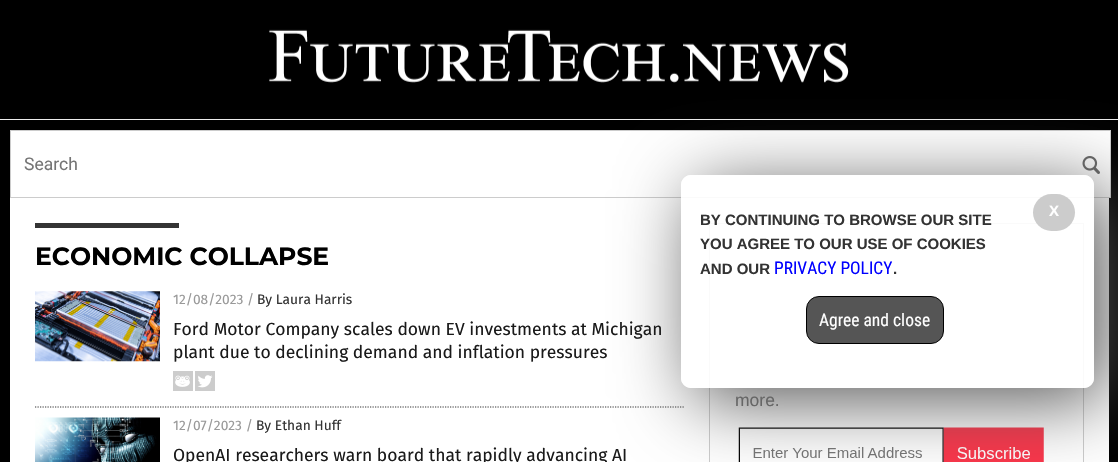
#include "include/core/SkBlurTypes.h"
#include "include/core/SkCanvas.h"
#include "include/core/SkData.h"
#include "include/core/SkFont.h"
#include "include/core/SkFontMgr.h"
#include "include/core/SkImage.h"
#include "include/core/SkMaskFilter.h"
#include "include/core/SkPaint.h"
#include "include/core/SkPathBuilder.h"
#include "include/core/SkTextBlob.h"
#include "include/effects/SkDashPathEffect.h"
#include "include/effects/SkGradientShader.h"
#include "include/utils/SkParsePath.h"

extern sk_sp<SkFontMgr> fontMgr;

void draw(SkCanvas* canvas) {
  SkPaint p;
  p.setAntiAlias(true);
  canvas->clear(SK_ColorBLACK);
  canvas->drawImageRect(SkImages::DeferredFromEncodedData(SkData::MakeFromFileName("images/1.png")), SkRect::MakeLTRB(269, 29, 849, 83), SkSamplingOptions());
  p.setColor(SkColorSetRGB(236, 236, 236));
  canvas->drawRect(SkRect::MakeLTRB(0, 119, 1118, 120), p);
  p.setColor(SK_ColorWHITE);
  canvas->drawRect(SkRect::MakeLTRB(10.5f, 130.5f, 1110.5f, 197.5f), p);
  p.setStyle(SkPaint::kStroke_Style);
  p.setStrokeWidth(1);
  p.setColor(SkColorSetRGB(204, 204, 204));
  canvas->drawRect(SkRect::MakeLTRB(10.5f, 130.5f, 1110.5f, 197.5f), p);
  canvas->drawImageRect(SkImages::DeferredFromEncodedData(SkData::MakeFromFileName("images/2.png")), SkRect::MakeLTRB(1082, 156, 1100, 174), SkSamplingOptions());
  p.setStyle(SkPaint::kFill_Style);
  p.setColor(SK_ColorWHITE);
  canvas->drawRect(SkRect::MakeLTRB(10, 198, 1109, 462), p);
  p.setColor(SkColorSetRGB(52, 52, 52));
  canvas->drawRect(SkRect::MakeLTRB(35, 223, 179, 228), p);
  p.setStyle(SkPaint::kStroke_Style);
  p.setStrokeWidth(1.2f);
  p.setPathEffect(SkDashPathEffect::Make({{1.25f, 1.25f}}, 0));
  canvas->drawPath(SkPathBuilder().moveTo(35, 407).lineTo(684, 407).detach(), p);
  p.setPathEffect(nullptr);
  canvas->drawImageRect(SkImages::DeferredFromEncodedData(SkData::MakeFromFileName("images/3.png")), SkRect::MakeLTRB(35, 291, 160, 362), SkSamplingOptions());
  canvas->drawImageRect(SkImages::DeferredFromEncodedData(SkData::MakeFromFileName("images/4.png")), SkRect::MakeLTRB(173, 371, 193, 391), SkSamplingOptions());
  canvas->drawImageRect(SkImages::DeferredFromEncodedData(SkData::MakeFromFileName("images/5.png")), SkRect::MakeLTRB(195, 371, 215, 391), SkSamplingOptions());
  canvas->drawImageRect(SkImages::DeferredFromEncodedData(SkData::MakeFromFileName("images/6.png")), SkRect::MakeLTRB(35, 417, 160, 462), SkSamplingOptions());
  p.setStrokeWidth(1);
  p.setColor(SkColorSetRGB(204, 204, 204));
  canvas->drawRect(SkRect::MakeLTRB(709.5f, 223.5f, 1083.5f, 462.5f), p);
  canvas->drawImageRect(SkImages::DeferredFromEncodedData(SkData::MakeFromFileName("images/7.png")), SkRect::MakeLTRB(738, 427, 1044, 462), SkSamplingOptions());
  canvas->save();
  canvas->clipPath(SkPathBuilder(SkPathFillType::kEvenOdd).moveTo(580, 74).lineTo(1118, 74).lineTo(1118, 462).lineTo(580, 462).close().moveTo(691, 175).lineTo(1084, 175).cubicTo(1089.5f, 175, 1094, 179.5f, 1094, 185).lineTo(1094, 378).cubicTo(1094, 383.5f, 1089.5f, 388, 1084, 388).lineTo(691, 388).cubicTo(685.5f, 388, 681, 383.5f, 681, 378).lineTo(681, 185).cubicTo(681, 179.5f, 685.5f, 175, 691, 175).close().detach(), true);
  p.setStyle(SkPaint::kFill_Style);
  p.setColor(SkColorSetRGB(85, 85, 85));
  p.setMaskFilter(SkMaskFilter::MakeBlur(kNormal_SkBlurStyle, 37.5f));
  canvas->drawRoundRect(SkRect::MakeLTRB(694, 188, 1106, 400), 10, 10, p);
  p.setMaskFilter(nullptr);
  canvas->restore();
  p.setColor(SkColorSetARGB(230, 255, 255, 255));
  canvas->drawRoundRect(SkRect::MakeLTRB(681, 175, 1094, 388), 10, 10, p);
  p.setColor(SkColorSetRGB(204, 204, 204));
  canvas->drawRoundRect(SkRect::MakeLTRB(1033, 194, 1075, 231), 18.5f, 18.5f, p);
  p.setColor(SkColorSetRGB(85, 85, 85));
  canvas->drawRoundRect(SkRect::MakeLTRB(806.5f, 296.5f, 943.5f, 343.5f), 12.5f, 12.5f, p);
  p.setStyle(SkPaint::kStroke_Style);
  p.setColor(SK_ColorBLACK);
  canvas->drawRoundRect(SkRect::MakeLTRB(806.5f, 296.5f, 943.5f, 343.5f), 12.5f, 12.5f, p);
  SkFont font1(fontMgr->matchFamilyStyle("Roboto", SkFontStyle::Normal()), 17.5f);
  font1.setSubpixel(true);
  p.setStyle(SkPaint::kFill_Style);
  p.setColor(SkColorSetRGB(117, 117, 117));
  canvas->drawString("Search", 24, 170, font1, p);
  SkFont font2(fontMgr->matchFamilyStyle("Montserrat", SkFontStyle::Bold()), 25);
  font2.setSubpixel(true);
  p.setColor(SK_ColorBLACK);
  canvas->drawString("ECONOMIC COLLAPSE", 35, 265, font2, p);
  SkFont font3(fontMgr->matchFamilyStyle("Fira Sans", SkFontStyle::Normal()), 13.75f);
  font3.setSubpixel(true);
  p.setColor(SkColorSetRGB(153, 153, 153));
  canvas->drawString("12/08/2023 /", 173, 304, font3, p);
  p.setColor(SkColorSetRGB(51, 51, 51));
  canvas->drawString("By Laura Harris", 257, 304, font3, p);
  SkFont font4(fontMgr->matchFamilyStyle("Fira Sans", SkFontStyle::Normal()), 17.5f);
  font4.setSubpixel(true);
  p.setColor(SkColorSetRGB(26, 26, 26));
  canvas->drawString("Ford Motor Company scales down EV investments at Michigan", 173, 335, font4, p);
  canvas->drawString("plant due to declining demand and inflation pressures", 173, 358, font4, p);
  p.setColor(SkColorSetRGB(153, 153, 153));
  canvas->drawString("12/07/2023 /", 173, 430, font3, p);
  p.setColor(SkColorSetRGB(51, 51, 51));
  canvas->drawString("By Ethan Huff", 256, 430, font3, p);
  p.setColor(SkColorSetRGB(26, 26, 26));
  canvas->drawString("OpenAI researchers warn board that rapidly advancing AI", 173, 461, font4, p);
  SkFont font5(fontMgr->matchFamilyStyle("Liberation Sans", SkFontStyle::Normal()), 17.5f);
  font5.setSubpixel(true);
  p.setColor(SkColorSetRGB(102, 102, 102));
  canvas->drawString("more.", 735, 406, font5, p);
  SkFont font6(fontMgr->matchFamilyStyle("Liberation Sans", SkFontStyle::Bold()), 15);
  font6.setSubpixel(true);
  p.setColor(SK_ColorWHITE);
  canvas->drawString("X", 1049, 216, font6, p);
  p.setColor(SkColorSetRGB(51, 51, 51));
  canvas->drawString("BY CONTINUING TO BROWSE OUR SITE", 700, 225, font6, p);
  canvas->drawString("YOU AGREE TO OUR USE OF COOKIES", 700, 249, font6, p);
  canvas->drawString("AND OUR", 700, 274, font6, p);
  SkFont font7(fontMgr->matchFamilyStyle("Roboto Condensed", SkFontStyle::Normal()), 17.5f);
  font7.setSubpixel(true);
  p.setColor(SkColorSetRGB(0, 0, 255));
  canvas->drawString("PRIVACY POLICY", 774, 274, font7, p);
  p.setColor(SkColorSetRGB(51, 51, 51));
  canvas->drawString(".", 893, 274, font6, p);
  p.setColor(SK_ColorWHITE);
  canvas->drawString("Agree and close", 819, 326, font7, p);
}
